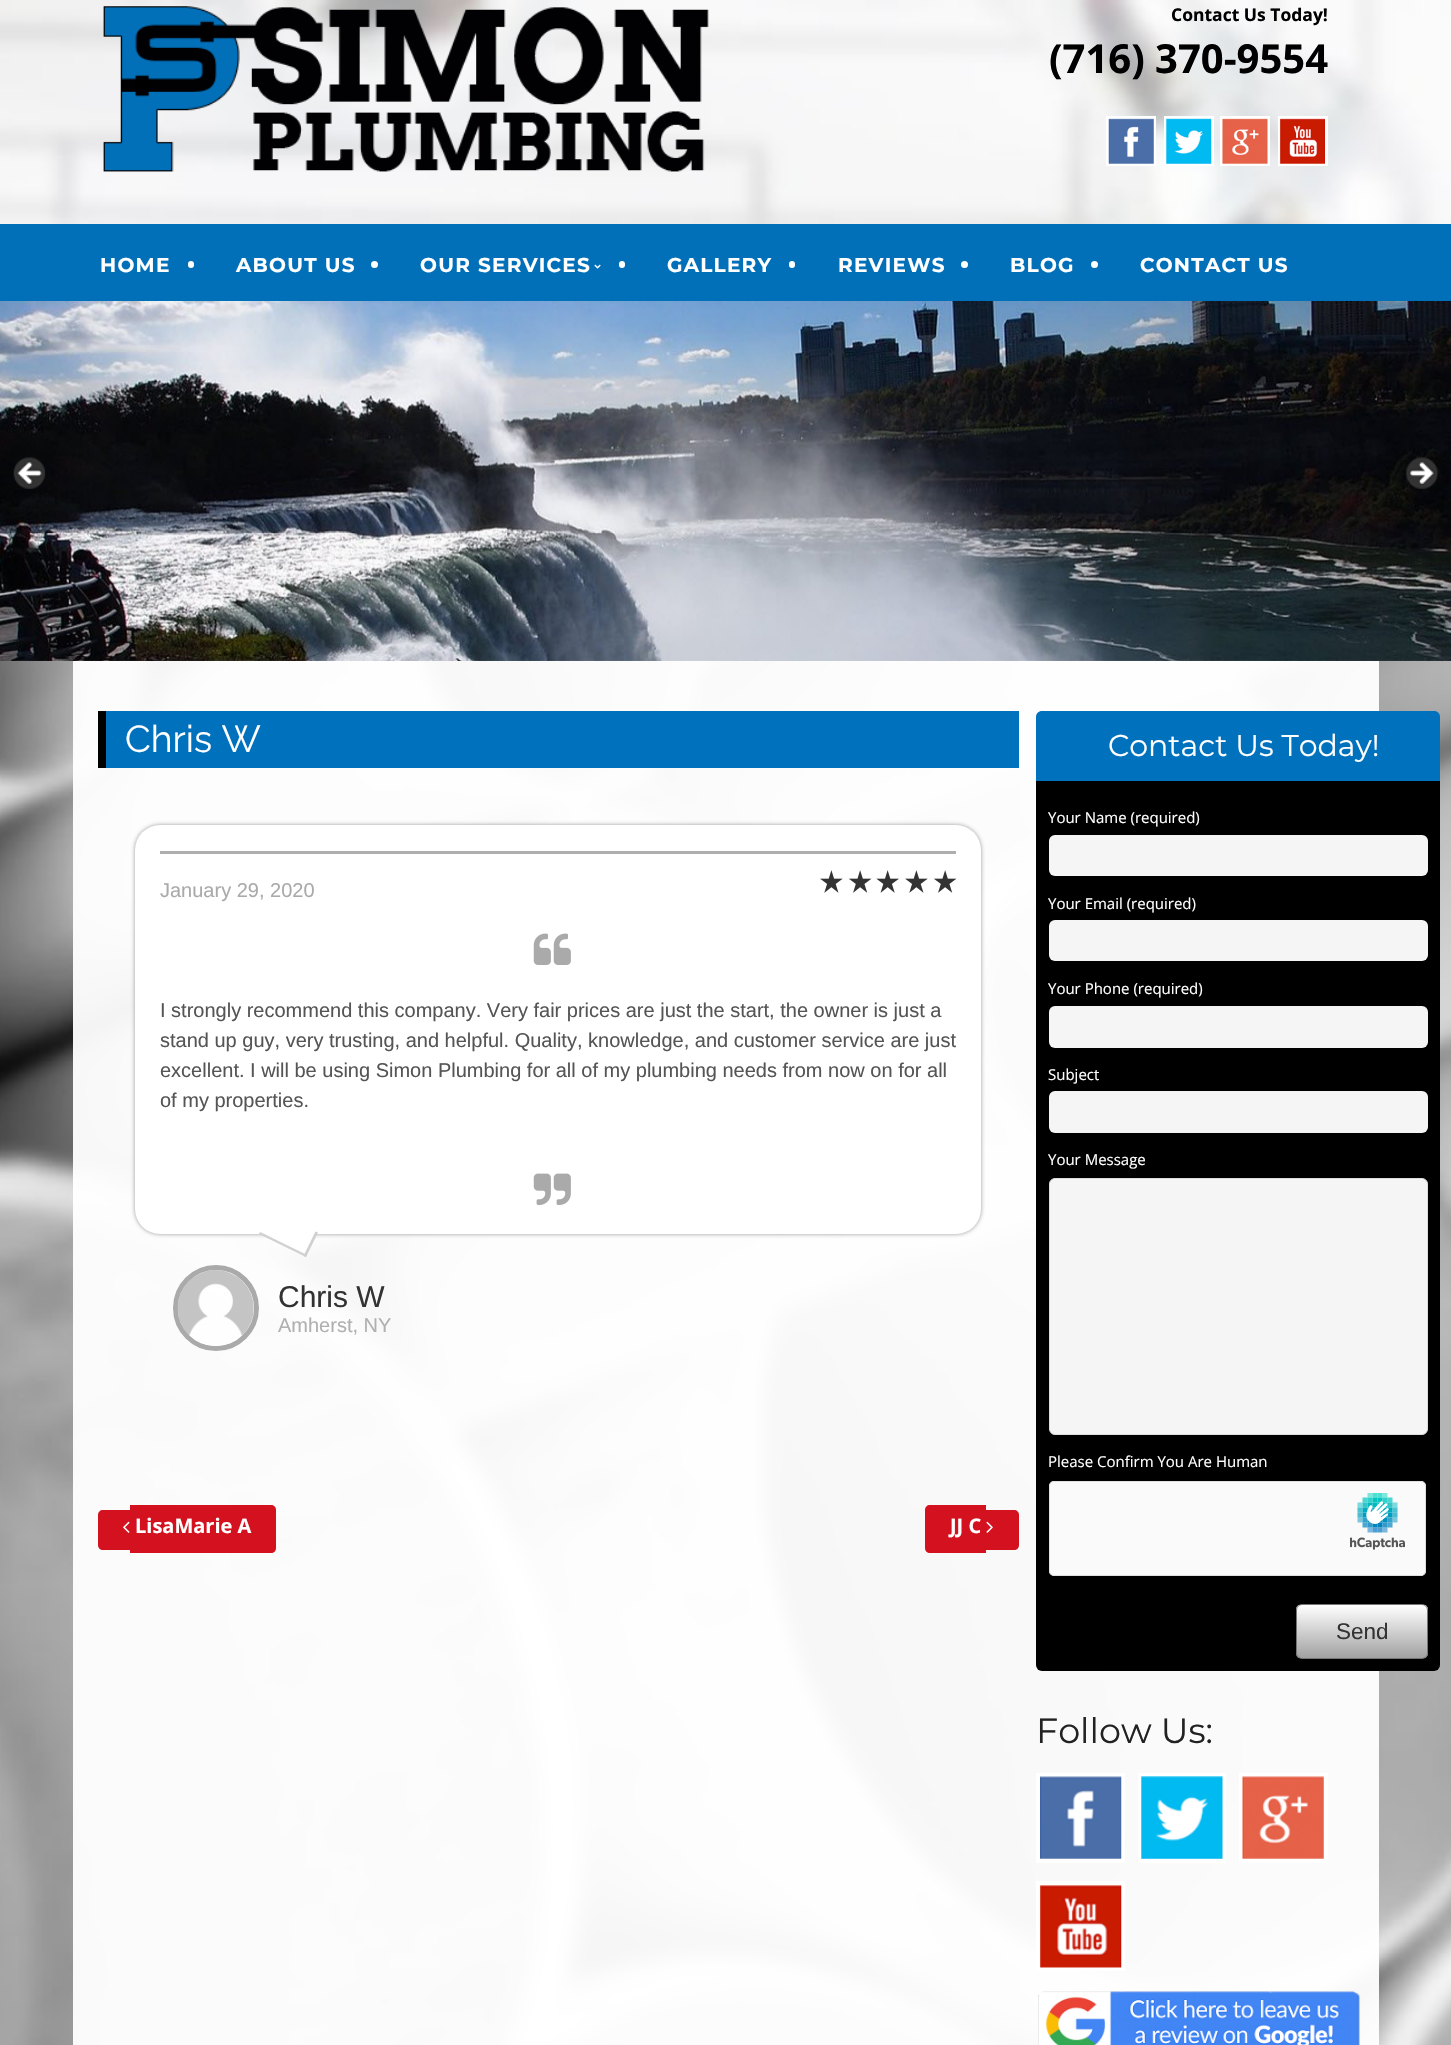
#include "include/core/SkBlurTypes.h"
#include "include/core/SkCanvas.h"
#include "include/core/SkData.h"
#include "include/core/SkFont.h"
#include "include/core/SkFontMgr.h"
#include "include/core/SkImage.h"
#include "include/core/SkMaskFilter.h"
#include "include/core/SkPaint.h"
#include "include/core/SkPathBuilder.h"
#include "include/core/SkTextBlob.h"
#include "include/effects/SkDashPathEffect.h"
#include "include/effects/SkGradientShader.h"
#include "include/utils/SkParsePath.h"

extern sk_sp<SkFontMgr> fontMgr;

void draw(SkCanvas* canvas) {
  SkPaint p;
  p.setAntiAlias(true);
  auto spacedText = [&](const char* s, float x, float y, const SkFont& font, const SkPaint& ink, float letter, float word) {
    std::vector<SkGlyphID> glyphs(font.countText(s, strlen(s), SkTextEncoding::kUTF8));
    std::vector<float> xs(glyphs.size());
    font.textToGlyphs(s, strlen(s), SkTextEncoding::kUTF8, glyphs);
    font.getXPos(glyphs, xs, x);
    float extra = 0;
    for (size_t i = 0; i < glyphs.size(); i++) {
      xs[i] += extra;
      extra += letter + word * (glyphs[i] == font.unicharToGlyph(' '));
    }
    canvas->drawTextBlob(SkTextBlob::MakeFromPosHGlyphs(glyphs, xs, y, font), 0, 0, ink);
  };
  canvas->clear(SK_ColorWHITE);
  canvas->drawImageRect(SkImages::DeferredFromEncodedData(SkData::MakeFromFileName("images/1.png")), SkRect::MakeLTRB(0, 660, 1451, 2045), SkSamplingOptions());
  canvas->drawImageRect(SkImages::DeferredFromEncodedData(SkData::MakeFromFileName("images/2.png")), SkRect::MakeLTRB(0, 0, 1451, 224), SkSamplingOptions());
  canvas->drawImageRect(SkImages::DeferredFromEncodedData(SkData::MakeFromFileName("images/3.png")), SkRect::MakeLTRB(103, 6, 709, 172), SkSamplingOptions());
  p.setStyle(SkPaint::kStroke_Style);
  p.setStrokeWidth(3);
  p.setColor(SK_ColorWHITE);
  canvas->drawRect(SkRect::MakeLTRB(1107.5f, 117.5f, 1154.5f, 164.5f), p);
  canvas->drawRect(SkRect::MakeLTRB(1165.5f, 117.5f, 1212.5f, 164.5f), p);
  canvas->drawRect(SkRect::MakeLTRB(1221.5f, 117.5f, 1268.5f, 164.5f), p);
  canvas->drawRect(SkRect::MakeLTRB(1279.5f, 117.5f, 1326.5f, 164.5f), p);
  canvas->drawImageRect(SkImages::DeferredFromEncodedData(SkData::MakeFromFileName("images/4.png")), SkRect::MakeLTRB(1108, 118, 1154, 164), SkSamplingOptions());
  canvas->drawImageRect(SkImages::DeferredFromEncodedData(SkData::MakeFromFileName("images/5.png")), SkRect::MakeLTRB(1166, 118, 1212, 164), SkSamplingOptions());
  canvas->drawImageRect(SkImages::DeferredFromEncodedData(SkData::MakeFromFileName("images/6.png")), SkRect::MakeLTRB(1222, 118, 1268, 164), SkSamplingOptions());
  canvas->drawImageRect(SkImages::DeferredFromEncodedData(SkData::MakeFromFileName("images/7.png")), SkRect::MakeLTRB(1280, 118, 1325, 164), SkSamplingOptions());
  p.setStyle(SkPaint::kFill_Style);
  p.setColor(SkColorSetRGB(1, 112, 185));
  canvas->drawRect(SkRect::MakeLTRB(0, 224, 1451, 301), p);
  p.setColor(SK_ColorWHITE);
  canvas->drawRoundRect(SkRect::MakeLTRB(188, 261, 194, 268), 3, 3, p);
  canvas->drawCircle(374.5f, 264.5f, 3.5f, p);
  canvas->drawImageRect(SkImages::DeferredFromEncodedData(SkData::MakeFromFileName("images/8.png")), SkRect::MakeLTRB(594, 264, 601, 269), SkSamplingOptions());
  canvas->drawRoundRect(SkRect::MakeLTRB(619, 261, 625, 268), 3, 3, p);
  canvas->drawRoundRect(SkRect::MakeLTRB(789, 261, 795, 268), 3, 3, p);
  canvas->drawCircle(964.5f, 264.5f, 3.5f, p);
  canvas->drawCircle(1094.5f, 264.5f, 3.5f, p);
  canvas->drawImageRect(SkImages::DeferredFromEncodedData(SkData::MakeFromFileName("images/9.png")), SkRect::MakeLTRB(0, 301, 1451, 661), SkSamplingOptions());
  canvas->drawImageRect(SkImages::DeferredFromEncodedData(SkData::MakeFromFileName("images/10.png")), SkRect::MakeLTRB(13, 457, 46, 489), SkSamplingOptions());
  canvas->drawImageRect(SkImages::DeferredFromEncodedData(SkData::MakeFromFileName("images/11.png")), SkRect::MakeLTRB(1406, 457, 1438, 489), SkSamplingOptions());
  p.setColor(SkColorSetARGB(242, 255, 255, 255));
  canvas->drawRect(SkRect::MakeLTRB(73, 661, 1379, 2045), p);
  p.setColor(SkColorSetRGB(0, 113, 188));
  canvas->drawRect(SkRect::MakeLTRB(106, 711, 1019, 768), p);
  p.setColor(SK_ColorBLACK);
  canvas->drawRect(SkRect::MakeLTRB(98, 711, 106, 768), p);
  p.setColor(SkColorSetRGB(153, 153, 153));
  p.setMaskFilter(SkMaskFilter::MakeBlur(kNormal_SkBlurStyle, 2));
  canvas->drawRoundRect(SkRect::MakeLTRB(135, 825, 981, 1234), 25, 25, p);
  p.setMaskFilter(nullptr);
  p.setColor(SK_ColorWHITE);
  canvas->drawRoundRect(SkRect::MakeLTRB(135, 825, 981, 1234), 25, 25, p);
  p.setColor(SkColorSetRGB(174, 174, 174));
  canvas->drawRect(SkRect::MakeLTRB(160, 851, 956, 854), p);
  canvas->drawImageRect(SkImages::DeferredFromEncodedData(SkData::MakeFromFileName("images/12.png")), SkRect::MakeLTRB(820, 870, 843, 893), SkSamplingOptions());
  canvas->drawImageRect(SkImages::DeferredFromEncodedData(SkData::MakeFromFileName("images/13.png")), SkRect::MakeLTRB(849, 870, 872, 893), SkSamplingOptions());
  canvas->drawImageRect(SkImages::DeferredFromEncodedData(SkData::MakeFromFileName("images/14.png")), SkRect::MakeLTRB(876, 870, 899, 893), SkSamplingOptions());
  canvas->drawImageRect(SkImages::DeferredFromEncodedData(SkData::MakeFromFileName("images/12.png")), SkRect::MakeLTRB(905, 870, 928, 893), SkSamplingOptions());
  canvas->drawImageRect(SkImages::DeferredFromEncodedData(SkData::MakeFromFileName("images/13.png")), SkRect::MakeLTRB(934, 870, 957, 893), SkSamplingOptions());
  canvas->drawImageRect(SkImages::DeferredFromEncodedData(SkData::MakeFromFileName("images/15.png")), SkRect::MakeLTRB(533, 933, 571, 965), SkSamplingOptions());
  canvas->drawImageRect(SkImages::DeferredFromEncodedData(SkData::MakeFromFileName("images/16.png")), SkRect::MakeLTRB(533, 1173, 571, 1205), SkSamplingOptions());
  p.setColor(SK_ColorWHITE);
  canvas->drawPath(SkPathBuilder().moveTo(271, 1209).lineTo(316, 1231).lineTo(305, 1254).lineTo(260, 1232).close().detach(), p);
  p.setColor(SkColorSetRGB(208, 208, 208));
  canvas->drawPath(SkPathBuilder().moveTo(315.5f, 1231.5f).lineTo(318, 1232.5f).lineTo(306, 1257).lineTo(303.5f, 1256).close().detach(), p);
  canvas->drawPath(SkPathBuilder().moveTo(260, 1232).lineTo(307, 1255).lineTo(306, 1257).lineTo(259, 1234).close().detach(), p);
  p.setStyle(SkPaint::kStroke_Style);
  p.setStrokeWidth(5);
  p.setColor(SkColorSetRGB(170, 170, 170));
  canvas->drawCircle(216, 1308, 40.5f, p);
  canvas->drawImageRect(SkImages::DeferredFromEncodedData(SkData::MakeFromFileName("images/17.png")), SkRect::MakeLTRB(177, 1270, 254, 1347), SkSamplingOptions());
  p.setStyle(SkPaint::kFill_Style);
  p.setColor(SkColorSetRGB(212, 17, 30));
  canvas->drawPath(SkPathBuilder().moveTo(103, 1510).lineTo(130, 1510).lineTo(130, 1550).lineTo(103, 1550).cubicTo(100, 1550, 98, 1548, 98, 1545).lineTo(98, 1515).cubicTo(98, 1512, 100, 1510, 103, 1510).close().detach(), p);
  canvas->drawPath(SkPathBuilder().moveTo(130, 1505).lineTo(271, 1505).cubicTo(274, 1505, 276, 1507, 276, 1510).lineTo(276, 1548).cubicTo(276, 1551, 274, 1553, 271, 1553).lineTo(130, 1553).close().detach(), p);
  canvas->drawImageRect(SkImages::DeferredFromEncodedData(SkData::MakeFromFileName("images/18.png")), SkRect::MakeLTRB(123, 1521, 130, 1533), SkSamplingOptions());
  canvas->drawPath(SkPathBuilder().moveTo(930, 1505).lineTo(986, 1505).lineTo(986, 1553).lineTo(930, 1553).cubicTo(927, 1553, 925, 1551, 925, 1548).lineTo(925, 1510).cubicTo(925, 1507, 927, 1505, 930, 1505).close().detach(), p);
  canvas->drawPath(SkPathBuilder().moveTo(986, 1510).lineTo(1014, 1510).cubicTo(1017, 1510, 1019, 1512, 1019, 1515).lineTo(1019, 1545).cubicTo(1019, 1548, 1017, 1550, 1014, 1550).lineTo(986, 1550).close().detach(), p);
  canvas->drawImageRect(SkImages::DeferredFromEncodedData(SkData::MakeFromFileName("images/19.png")), SkRect::MakeLTRB(986, 1521, 993, 1533), SkSamplingOptions());
  p.setColor(SK_ColorBLACK);
  canvas->drawRoundRect(SkRect::MakeLTRB(1036, 718, 1440, 1671), 6, 6, p);
  p.setColor(SkColorSetRGB(0, 113, 188));
  canvas->drawPath(SkPathBuilder().moveTo(1042, 711).lineTo(1434, 711).cubicTo(1437.5f, 711, 1440, 713.5f, 1440, 717).lineTo(1440, 781).lineTo(1036, 781).lineTo(1036, 717).cubicTo(1036, 713.5f, 1038.5f, 711, 1042, 711).close().detach(), p);
  p.setColor(SkColorSetRGB(245, 245, 245));
  canvas->drawRoundRect(SkRect::MakeLTRB(1049, 835, 1428, 876), 6, 6, p);
  canvas->drawRoundRect(SkRect::MakeLTRB(1049, 920, 1428, 961), 6, 6, p);
  canvas->drawRoundRect(SkRect::MakeLTRB(1049, 1006, 1428, 1048), 6, 6, p);
  canvas->drawRoundRect(SkRect::MakeLTRB(1049, 1091, 1428, 1133), 6, 6, p);
  canvas->drawRoundRect(SkRect::MakeLTRB(1049.5f, 1178.5f, 1427.5f, 1434.5f), 5.5f, 5.5f, p);
  p.setStyle(SkPaint::kStroke_Style);
  p.setStrokeWidth(1);
  p.setColor(SkColorSetRGB(221, 221, 221));
  canvas->drawRoundRect(SkRect::MakeLTRB(1049.5f, 1178.5f, 1427.5f, 1434.5f), 5.5f, 5.5f, p);
  p.setStyle(SkPaint::kFill_Style);
  p.setColor(SkColorSetRGB(250, 250, 250));
  canvas->drawRoundRect(SkRect::MakeLTRB(1049, 1481, 1426, 1576), 5, 5, p);
  canvas->drawImageRect(SkImages::DeferredFromEncodedData(SkData::MakeFromFileName("images/20.png")), SkRect::MakeLTRB(1350, 1493, 1405, 1550), SkSamplingOptions());
  p.setStyle(SkPaint::kStroke_Style);
  p.setColor(SkColorSetRGB(224, 224, 224));
  canvas->drawRoundRect(SkRect::MakeLTRB(1049.5f, 1481.5f, 1425.5f, 1575.5f), 4.5f, 4.5f, p);
  canvas->save();
  canvas->clipPath(SkPathBuilder().moveTo(1302, 1604).lineTo(1422, 1604).cubicTo(1425.5f, 1604, 1428, 1606.5f, 1428, 1610).lineTo(1428, 1653).cubicTo(1428, 1656.5f, 1425.5f, 1659, 1422, 1659).lineTo(1302, 1659).cubicTo(1298.5f, 1659, 1296, 1656.5f, 1296, 1653).lineTo(1296, 1610).cubicTo(1296, 1606.5f, 1298.5f, 1604, 1302, 1604).close().detach(), true);
  p.setStyle(SkPaint::kFill_Style);
  {
    const SkColor colors[] = {SK_ColorWHITE, SkColorSetRGB(161, 161, 161)};
    const float stops[] = {0, 1};
    const SkPoint ends[] = {{1362, 1605}, {1362, 1658}};
    p.setShader(SkGradientShader::MakeLinear(ends, colors, stops, 2, SkTileMode::kClamp));
    p.setAlpha(255);
  }
  canvas->drawRect(SkRect::MakeLTRB(1296, 1605, 1428, 1658), p);
  canvas->restore();
  p.setStyle(SkPaint::kStroke_Style);
  p.setShader(nullptr);
  p.setColor(SkColorSetRGB(117, 117, 117));
  canvas->drawRoundRect(SkRect::MakeLTRB(1296.5f, 1604.5f, 1427.5f, 1658.5f), 5.5f, 5.5f, p);
  p.setStrokeWidth(4);
  p.setColor(SK_ColorWHITE);
  canvas->drawRect(SkRect::MakeLTRB(1038, 1775, 1123, 1861), p);
  canvas->drawImageRect(SkImages::DeferredFromEncodedData(SkData::MakeFromFileName("images/21.png")), SkRect::MakeLTRB(1040, 1776, 1122, 1859), SkSamplingOptions());
  canvas->drawRect(SkRect::MakeLTRB(1140, 1775, 1224, 1861), p);
  canvas->drawImageRect(SkImages::DeferredFromEncodedData(SkData::MakeFromFileName("images/22.png")), SkRect::MakeLTRB(1141, 1776, 1223, 1859), SkSamplingOptions());
  canvas->drawRect(SkRect::MakeLTRB(1241, 1775, 1326, 1861), p);
  canvas->drawImageRect(SkImages::DeferredFromEncodedData(SkData::MakeFromFileName("images/23.png")), SkRect::MakeLTRB(1242, 1776, 1324, 1859), SkSamplingOptions());
  canvas->drawRect(SkRect::MakeLTRB(1038, 1883, 1123, 1969), p);
  canvas->drawImageRect(SkImages::DeferredFromEncodedData(SkData::MakeFromFileName("images/24.png")), SkRect::MakeLTRB(1040, 1885, 1122, 1968), SkSamplingOptions());
  canvas->drawImageRect(SkImages::DeferredFromEncodedData(SkData::MakeFromFileName("images/25.png")), SkRect::MakeLTRB(1038, 1991, 1360, 2045), SkSamplingOptions());
  SkFont font1(fontMgr->matchFamilyStyle("Open Sans", SkFontStyle::Bold()), 17.5f);
  font1.setSubpixel(true);
  p.setStyle(SkPaint::kFill_Style);
  p.setColor(SK_ColorBLACK);
  canvas->drawString("Contact Us Today!", 1171, 21, font1, p);
  SkFont font2(fontMgr->matchFamilyStyle("Open Sans", SkFontStyle::Bold()), 40);
  font2.setSubpixel(true);
  canvas->drawString("(716) 370-9554", 1049, 73, font2, p);
  SkFont font3(fontMgr->matchFamilyStyle("Montserrat", SkFontStyle::Bold()), 20);
  font3.setSubpixel(true);
  p.setColor(SK_ColorWHITE);
  spacedText("HOME", 100, 272, font3, p, 1.25f, 0);
  spacedText("ABOUT US", 236, 272, font3, p, 1.25f, 0);
  spacedText("OUR SERVICES", 420, 272, font3, p, 1.25f, 0);
  spacedText("GALLERY", 667, 272, font3, p, 1.25f, 0);
  spacedText("REVIEWS", 838, 272, font3, p, 1.25f, 0);
  spacedText("BLOG", 1010, 272, font3, p, 1.25f, 0);
  spacedText("CONTACT US", 1140, 272, font3, p, 1.25f, 0);
  SkFont font4(fontMgr->matchFamilyStyle("Raleway", SkFontStyle::Normal()), 37.5f);
  font4.setSubpixel(true);
  canvas->drawString("Chris W", 125, 752, font4, p);
  SkFont font5(fontMgr->matchFamilyStyle("Liberation Sans", SkFontStyle::Normal()), 20);
  font5.setSubpixel(true);
  p.setColor(SkColorSetRGB(170, 170, 170));
  canvas->drawString("January 29, 2020", 160, 897, font5, p);
  p.setColor(SkColorSetRGB(85, 85, 85));
  canvas->drawString("I strongly recommend this company. Very fair prices are just the start, the owner is just a", 160, 1017, font5, p);
  canvas->drawString("stand up guy, very trusting, and helpful. Quality, knowledge, and customer service are just", 160, 1047, font5, p);
  canvas->drawString("excellent. I will be using Simon Plumbing for all of my plumbing needs from now on for all", 160, 1077, font5, p);
  canvas->drawString("of my properties.", 160, 1107, font5, p);
  SkFont font6(fontMgr->matchFamilyStyle("Liberation Sans", SkFontStyle::Normal()), 30);
  font6.setSubpixel(true);
  p.setColor(SkColorSetRGB(51, 51, 51));
  canvas->drawString("Chris W", 278, 1307, font6, p);
  p.setColor(SkColorSetRGB(176, 176, 176));
  canvas->drawString("Amherst, NY", 278, 1332, font5, p);
  SkFont font7(fontMgr->matchFamilyStyle("Open Sans", SkFontStyle::Bold()), 20);
  font7.setSubpixel(true);
  p.setColor(SK_ColorWHITE);
  canvas->drawString("LisaMarie A", 135, 1533, font7, p);
  canvas->drawString("JJ C", 950, 1533, font7, p);
  SkFont font8(fontMgr->matchFamilyStyle("Montserrat", SkFontStyle::Normal()), 30);
  font8.setSubpixel(true);
  canvas->drawString("Contact Us Today!", 1108, 756, font8, p);
  SkFont font9(fontMgr->matchFamilyStyle("Open Sans", SkFontStyle::Normal()), 15);
  font9.setSubpixel(true);
  canvas->drawString("Your Name (required)", 1048, 823, font9, p);
  canvas->drawString("Your Email (required)", 1048, 909, font9, p);
  canvas->drawString("Your Phone (required)", 1048, 994, font9, p);
  canvas->drawString("Subject", 1048, 1080, font9, p);
  canvas->drawString("Your Message", 1048, 1165, font9, p);
  canvas->drawString("Please Confirm You Are Human", 1048, 1467, font9, p);
  SkFont font10(fontMgr->matchFamilyStyle("Liberation Sans", SkFontStyle::Normal()), 22.5f);
  font10.setSubpixel(true);
  p.setColor(SkColorSetRGB(51, 51, 51));
  canvas->drawString("Send", 1336, 1639, font10, p);
  SkFont font11(fontMgr->matchFamilyStyle("Montserrat", SkFontStyle::Normal()), 35);
  font11.setSubpixel(true);
  p.setColor(SkColorSetRGB(34, 34, 34));
  canvas->drawString("Follow Us:", 1036, 1743, font11, p);
}
